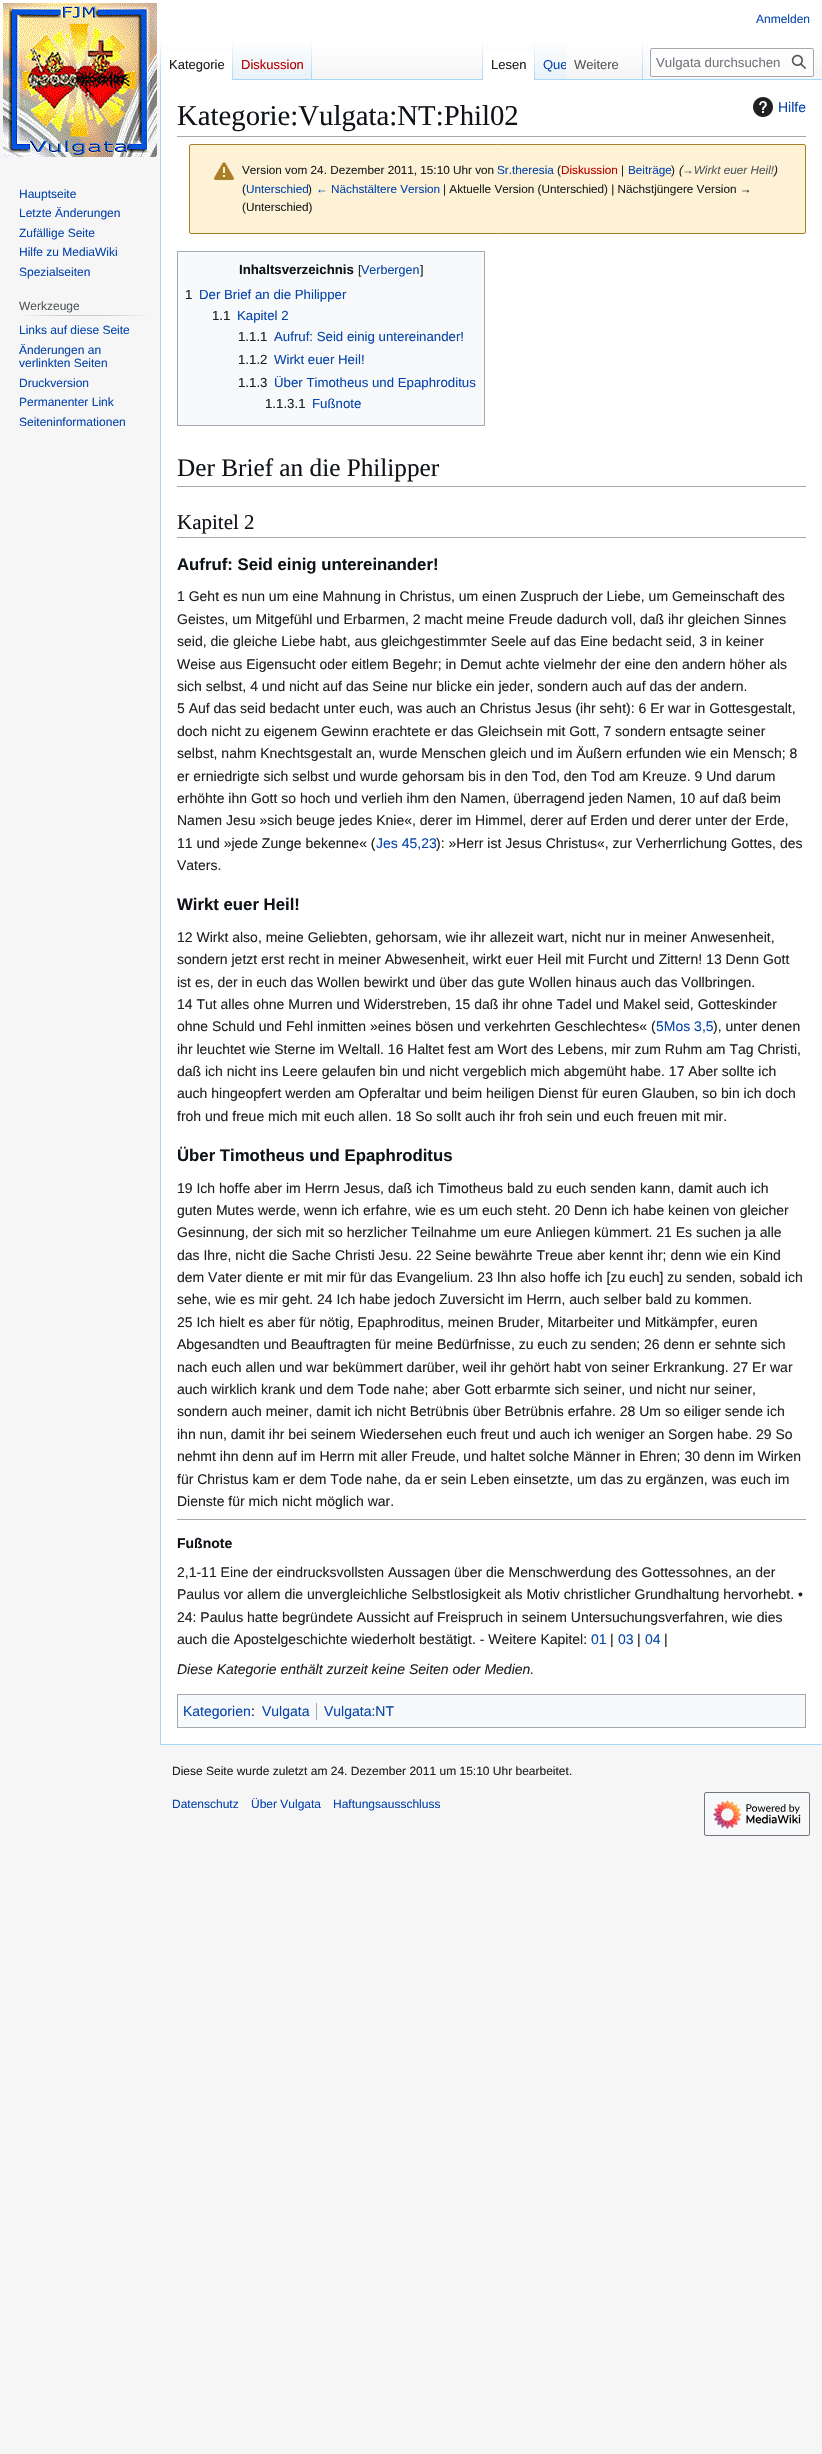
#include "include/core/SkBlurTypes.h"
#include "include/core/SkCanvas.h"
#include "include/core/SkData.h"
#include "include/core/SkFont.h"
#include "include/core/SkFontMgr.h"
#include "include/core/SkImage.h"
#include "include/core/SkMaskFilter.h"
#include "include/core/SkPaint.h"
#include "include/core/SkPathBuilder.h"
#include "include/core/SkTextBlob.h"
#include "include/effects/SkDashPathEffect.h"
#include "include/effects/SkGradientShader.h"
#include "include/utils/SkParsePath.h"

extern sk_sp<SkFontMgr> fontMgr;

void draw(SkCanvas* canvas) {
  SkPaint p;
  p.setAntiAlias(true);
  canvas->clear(SkColorSetRGB(246, 246, 246));
  {
    const SkColor colors[] = {SK_ColorWHITE, SkColorSetRGB(246, 246, 246)};
    const float stops[] = {0.5f, 1};
    const SkPoint ends[] = {{411, 0}, {411, 80}};
    p.setShader(SkGradientShader::MakeLinear(ends, colors, stops, 2, SkTileMode::kClamp));
    p.setAlpha(255);
  }
  canvas->drawRect(SkRect::MakeLTRB(0, 0, 822, 69), p);
  p.setShader(nullptr);
  p.setColor(SkColorSetRGB(167, 215, 249));
  canvas->drawRect(SkRect::MakeLTRB(160, 1744, 822, 1745), p);
  canvas->drawRect(SkRect::MakeLTRB(160, 79, 161, 1745), p);
  {
    const SkColor colors[] = {SkColorSetARGB(0, 167, 215, 249), SkColorSetRGB(167, 215, 249)};
    const float stops[] = {0, 1};
    const SkPoint ends[] = {{161, 40}, {161, 80}};
    p.setShader(SkGradientShader::MakeLinear(ends, colors, stops, 2, SkTileMode::kClamp));
    p.setAlpha(255);
  }
  canvas->drawRect(SkRect::MakeLTRB(160, 40, 161, 80), p);
  p.setShader(nullptr);
  p.setColor(SK_ColorWHITE);
  canvas->drawRect(SkRect::MakeLTRB(161, 51, 232, 80), p);
  {
    const SkColor colors[] = {SK_ColorWHITE, SkColorSetRGB(167, 215, 249)};
    const float stops[] = {0, 1};
    const SkPoint ends[] = {{233, 40}, {233, 80}};
    p.setShader(SkGradientShader::MakeLinear(ends, colors, stops, 2, SkTileMode::kClamp));
    p.setAlpha(255);
  }
  canvas->drawRect(SkRect::MakeLTRB(232, 40, 233, 80), p);
  {
    const SkColor colors[] = {SkColorSetRGB(119, 193, 246), SkColorSetRGB(232, 242, 248), SK_ColorWHITE};
    const float stops[] = {0, 0.03f, 1};
    const SkPoint ends[] = {{273, 80}, {273, 40}};
    p.setShader(SkGradientShader::MakeLinear(ends, colors, stops, 3, SkTileMode::kClamp));
    p.setAlpha(255);
  }
  canvas->drawRect(SkRect::MakeLTRB(233, 46, 312, 80), p);
  {
    const SkColor colors[] = {SkColorSetARGB(0, 167, 215, 249), SkColorSetRGB(167, 215, 249)};
    const float stops[] = {0, 1};
    const SkPoint ends[] = {{312, 40}, {312, 80}};
    p.setShader(SkGradientShader::MakeLinear(ends, colors, stops, 2, SkTileMode::kClamp));
    p.setAlpha(255);
  }
  canvas->drawRect(SkRect::MakeLTRB(311, 40, 312, 80), p);
  p.setShader(nullptr);
  p.setColor(SkColorSetRGB(167, 215, 249));
  canvas->drawRect(SkRect::MakeLTRB(312, 79, 822, 80), p);
  {
    const SkColor colors[] = {SkColorSetARGB(0, 167, 215, 249), SkColorSetRGB(167, 215, 249)};
    const float stops[] = {0, 1};
    const SkPoint ends[] = {{483, 40}, {483, 80}};
    p.setShader(SkGradientShader::MakeLinear(ends, colors, stops, 2, SkTileMode::kClamp));
    p.setAlpha(255);
  }
  canvas->drawRect(SkRect::MakeLTRB(482, 40, 483, 80), p);
  p.setShader(nullptr);
  p.setColor(SK_ColorWHITE);
  canvas->drawRect(SkRect::MakeLTRB(483, 51, 534, 80), p);
  {
    const SkColor colors[] = {SK_ColorWHITE, SkColorSetRGB(167, 215, 249)};
    const float stops[] = {0, 1};
    const SkPoint ends[] = {{535, 40}, {535, 80}};
    p.setShader(SkGradientShader::MakeLinear(ends, colors, stops, 2, SkTileMode::kClamp));
    p.setAlpha(255);
  }
  canvas->drawRect(SkRect::MakeLTRB(534, 40, 535, 80), p);
  {
    const SkColor colors[] = {SkColorSetRGB(119, 193, 246), SkColorSetRGB(232, 242, 248), SK_ColorWHITE};
    const float stops[] = {0, 0.03f, 1};
    const SkPoint ends[] = {{551, 80}, {551, 40}};
    p.setShader(SkGradientShader::MakeLinear(ends, colors, stops, 3, SkTileMode::kClamp));
    p.setAlpha(255);
  }
  canvas->drawRect(SkRect::MakeLTRB(535, 46, 566, 79), p);
  {
    const SkColor colors[] = {SkColorSetARGB(0, 167, 215, 249), SkColorSetRGB(167, 215, 249)};
    const float stops[] = {0, 1};
    const SkPoint ends[] = {{643, 40}, {643, 80}};
    p.setShader(SkGradientShader::MakeLinear(ends, colors, stops, 2, SkTileMode::kClamp));
    p.setAlpha(255);
  }
  canvas->drawRect(SkRect::MakeLTRB(642, 40, 643, 80), p);
  p.setShader(nullptr);
  p.setColor(SkColorSetARGB(128, 255, 255, 255));
  canvas->drawRoundRect(SkRect::MakeLTRB(650.5f, 48.5f, 813.5f, 76.5f), 1.5f, 1.5f, p);
  p.setStyle(SkPaint::kStroke_Style);
  p.setStrokeWidth(1);
  p.setColor(SkColorSetRGB(162, 169, 177));
  canvas->drawRoundRect(SkRect::MakeLTRB(650.5f, 48.5f, 813.5f, 76.5f), 1.5f, 1.5f, p);
  canvas->drawImageRect(SkImages::DeferredFromEncodedData(SkData::MakeFromFileName("images/1.png")), SkRect::MakeLTRB(791, 54, 806, 69), SkSamplingOptions());
  canvas->drawImageRect(SkImages::DeferredFromEncodedData(SkData::MakeFromFileName("images/2.png")), SkRect::MakeLTRB(3, 3, 157, 157), SkSamplingOptions());
  p.setStyle(SkPaint::kFill_Style);
  {
    const SkColor colors[] = {SkColorSetRGB(246, 246, 246), SkColorSetRGB(200, 204, 209), SkColorSetRGB(200, 204, 209), SkColorSetRGB(246, 246, 246)};
    const float stops[] = {0, 0.33f, 0.66f, 1};
    const SkPoint ends[] = {{19, 316}, {150, 316}};
    p.setShader(SkGradientShader::MakeLinear(ends, colors, stops, 4, SkTileMode::kClamp));
    p.setAlpha(255);
  }
  canvas->drawRect(SkRect::MakeLTRB(19, 315, 150, 316), p);
  p.setShader(nullptr);
  p.setColor(SK_ColorWHITE);
  canvas->drawRect(SkRect::MakeLTRB(161, 80, 822, 1744), p);
  p.setColor(SkColorSetRGB(162, 169, 177));
  canvas->drawRect(SkRect::MakeLTRB(177, 136, 806, 137), p);
  canvas->drawImageRect(SkImages::DeferredFromEncodedData(SkData::MakeFromFileName("images/3.png")), SkRect::MakeLTRB(753, 97, 773, 117), SkSamplingOptions());
  p.setColor(SkColorSetRGB(253, 242, 213));
  canvas->drawRoundRect(SkRect::MakeLTRB(189.5f, 144.5f, 805.5f, 233.5f), 1.5f, 1.5f, p);
  p.setStyle(SkPaint::kStroke_Style);
  p.setColor(SkColorSetRGB(171, 127, 42));
  canvas->drawRoundRect(SkRect::MakeLTRB(189.5f, 144.5f, 805.5f, 233.5f), 1.5f, 1.5f, p);
  canvas->drawImageRect(SkImages::DeferredFromEncodedData(SkData::MakeFromFileName("images/4.png")), SkRect::MakeLTRB(214, 162, 234, 180), SkSamplingOptions());
  p.setStyle(SkPaint::kFill_Style);
  p.setColor(SkColorSetRGB(248, 249, 250));
  canvas->drawRect(SkRect::MakeLTRB(177.5f, 251.5f, 484.5f, 425.5f), p);
  p.setStyle(SkPaint::kStroke_Style);
  p.setColor(SkColorSetRGB(162, 169, 177));
  canvas->drawRect(SkRect::MakeLTRB(177.5f, 251.5f, 484.5f, 425.5f), p);
  p.setStyle(SkPaint::kFill_Style);
  canvas->drawRect(SkRect::MakeLTRB(177, 486, 806, 487), p);
  canvas->drawRect(SkRect::MakeLTRB(177, 537, 806, 538), p);
  canvas->drawRect(SkRect::MakeLTRB(177, 1519, 806, 1520), p);
  p.setColor(SkColorSetRGB(248, 249, 250));
  canvas->drawRect(SkRect::MakeLTRB(177.5f, 1694.5f, 805.5f, 1727.5f), p);
  p.setStyle(SkPaint::kStroke_Style);
  p.setColor(SkColorSetRGB(162, 169, 177));
  canvas->drawRect(SkRect::MakeLTRB(177.5f, 1694.5f, 805.5f, 1727.5f), p);
  p.setStyle(SkPaint::kFill_Style);
  canvas->drawRect(SkRect::MakeLTRB(316, 1703, 317, 1720), p);
  p.setColor(SkColorSetRGB(248, 249, 250));
  canvas->drawRoundRect(SkRect::MakeLTRB(704.5f, 1792.5f, 809.5f, 1835.5f), 1.5f, 1.5f, p);
  p.setStyle(SkPaint::kStroke_Style);
  p.setColor(SkColorSetRGB(114, 119, 125));
  canvas->drawRoundRect(SkRect::MakeLTRB(704.5f, 1792.5f, 809.5f, 1835.5f), 1.5f, 1.5f, p);
  canvas->drawImageRect(SkImages::DeferredFromEncodedData(SkData::MakeFromFileName("images/5.png")), SkRect::MakeLTRB(713, 1800, 801, 1829), SkSamplingOptions());
  SkFont font1(fontMgr->matchFamilyStyle("Liberation Sans", SkFontStyle::Normal()), 12);
  font1.setSubpixel(true);
  p.setStyle(SkPaint::kFill_Style);
  p.setColor(SkColorSetRGB(6, 69, 173));
  canvas->drawString("Anmelden", 756, 23, font1, p);
  SkFont font2(fontMgr->matchFamilyStyle("Liberation Sans", SkFontStyle::Normal()), 13);
  font2.setSubpixel(true);
  p.setColor(SkColorSetRGB(32, 33, 34));
  canvas->drawString("Kategorie", 169, 69, font2, p);
  p.setColor(SkColorSetRGB(186, 0, 0));
  canvas->drawString("Diskussion", 241, 69, font2, p);
  p.setColor(SkColorSetRGB(32, 33, 34));
  canvas->drawString("Lesen", 491, 69, font2, p);
  canvas->save();
  canvas->clipRect(SkRect::MakeLTRB(535, 40, 566, 80));
  p.setColor(SkColorSetRGB(6, 69, 173));
  canvas->drawString("Que", 543, 69, font2, p);
  canvas->restore();
  p.setColor(SkColorSetRGB(84, 89, 93));
  canvas->drawString("Weitere", 574, 69, font2, p);
  SkFont font3(fontMgr->matchFamilyStyle("Liberation Sans", SkFontStyle::Normal()), 13.25f);
  font3.setSubpixel(true);
  p.setColor(SkColorSetRGB(114, 119, 125));
  canvas->drawString("Vulgata durchsuchen", 656, 67, font3, p);
  p.setColor(SkColorSetRGB(6, 69, 173));
  canvas->drawString("Hauptseite", 19, 198, font1, p);
  canvas->drawString("Letzte Änderungen", 19, 217, font1, p);
  canvas->drawString("Zufällige Seite", 19, 237, font1, p);
  canvas->drawString("Hilfe zu MediaWiki", 19, 256, font1, p);
  canvas->drawString("Spezialseiten", 19, 276, font1, p);
  p.setColor(SkColorSetRGB(84, 89, 93));
  canvas->drawString("Werkzeuge", 19, 310, font1, p);
  p.setColor(SkColorSetRGB(6, 69, 173));
  canvas->drawString("Links auf diese Seite", 19, 334, font1, p);
  canvas->drawString("Änderungen an", 19, 354, font1, p);
  canvas->drawString("verlinkten Seiten", 19, 367, font1, p);
  canvas->drawString("Druckversion", 19, 387, font1, p);
  canvas->drawString("Permanenter Link", 19, 406, font1, p);
  canvas->drawString("Seiteninformationen", 19, 426, font1, p);
  SkFont font4(fontMgr->matchFamilyStyle("Liberation Serif", SkFontStyle::Normal()), 28.75f);
  font4.setSubpixel(true);
  p.setColor(SkColorSetRGB(16, 20, 24));
  canvas->drawString("Kategorie:Vulgata:NT:Phil02", 177, 125, font4, p);
  SkFont font5(fontMgr->matchFamilyStyle("Liberation Sans", SkFontStyle::Normal()), 14);
  font5.setSubpixel(true);
  p.setColor(SkColorSetRGB(6, 69, 173));
  canvas->drawString("Hilfe", 778, 112, font5, p);
  SkFont font6(fontMgr->matchFamilyStyle("Liberation Sans", SkFontStyle::Normal()), 11.75f);
  font6.setSubpixel(true);
  p.setColor(SkColorSetRGB(32, 33, 34));
  canvas->drawString("Version vom 24. Dezember 2011, 15:10 Uhr von", 242, 174, font6, p);
  p.setColor(SkColorSetRGB(6, 69, 173));
  canvas->drawString("Sr.theresia", 497, 174, font6, p);
  p.setColor(SkColorSetRGB(32, 33, 34));
  canvas->drawString("(", 557, 174, font6, p);
  p.setColor(SkColorSetRGB(186, 0, 0));
  canvas->drawString("Diskussion", 561, 174, font6, p);
  p.setColor(SkColorSetRGB(32, 33, 34));
  canvas->drawString("|", 621, 174, font6, p);
  p.setColor(SkColorSetRGB(6, 69, 173));
  canvas->drawString("Beiträge", 628, 174, font6, p);
  p.setColor(SkColorSetRGB(32, 33, 34));
  canvas->drawString(")", 671, 174, font6, p);
  SkFont font7(fontMgr->matchFamilyStyle("Liberation Sans", SkFontStyle::Italic()), 11.75f);
  font7.setSubpixel(true);
  canvas->drawString("(", 679, 174, font7, p);
  p.setColor(SkColorSetRGB(84, 89, 93));
  canvas->drawString("→Wirkt euer Heil!", 682, 174, font7, p);
  p.setColor(SkColorSetRGB(32, 33, 34));
  canvas->drawString(")", 774, 174, font7, p);
  canvas->drawString("(", 242, 193, font6, p);
  p.setColor(SkColorSetRGB(6, 69, 173));
  canvas->drawString("Unterschied", 246, 193, font6, p);
  p.setColor(SkColorSetRGB(32, 33, 34));
  canvas->drawString(")", 308, 193, font6, p);
  p.setColor(SkColorSetRGB(6, 69, 173));
  canvas->drawString("← Nächstältere Version", 316, 193, font6, p);
  p.setColor(SkColorSetRGB(32, 33, 34));
  canvas->drawString("| Aktuelle Version (Unterschied) | Nächstjüngere Version →", 443, 193, font6, p);
  canvas->drawString("(Unterschied)", 242, 211, font6, p);
  SkFont font8(fontMgr->matchFamilyStyle("Liberation Sans", SkFontStyle::Bold()), 13.25f);
  font8.setSubpixel(true);
  p.setColor(SkColorSetRGB(16, 20, 24));
  canvas->drawString("Inhaltsverzeichnis", 239, 274, font8, p);
  SkFont font9(fontMgr->matchFamilyStyle("Liberation Sans", SkFontStyle::Normal()), 12.5f);
  font9.setSubpixel(true);
  p.setColor(SkColorSetRGB(32, 33, 34));
  canvas->drawString("[", 358, 274, font9, p);
  p.setColor(SkColorSetRGB(6, 69, 173));
  canvas->drawString("Verbergen", 361, 274, font9, p);
  p.setColor(SkColorSetRGB(32, 33, 34));
  canvas->drawString("]", 420, 274, font9, p);
  canvas->drawString("1", 185, 299, font3, p);
  p.setColor(SkColorSetRGB(6, 69, 173));
  canvas->drawString("Der Brief an die Philipper", 199, 299, font3, p);
  p.setColor(SkColorSetRGB(32, 33, 34));
  canvas->drawString("1.1", 212, 320, font3, p);
  p.setColor(SkColorSetRGB(6, 69, 173));
  canvas->drawString("Kapitel 2", 237, 320, font3, p);
  p.setColor(SkColorSetRGB(32, 33, 34));
  canvas->drawString("1.1.1", 238, 341, font3, p);
  p.setColor(SkColorSetRGB(6, 69, 173));
  canvas->drawString("Aufruf: Seid einig untereinander!", 274, 341, font3, p);
  p.setColor(SkColorSetRGB(32, 33, 34));
  canvas->drawString("1.1.2", 238, 364, font3, p);
  p.setColor(SkColorSetRGB(6, 69, 173));
  canvas->drawString("Wirkt euer Heil!", 274, 364, font3, p);
  p.setColor(SkColorSetRGB(32, 33, 34));
  canvas->drawString("1.1.3", 238, 387, font3, p);
  p.setColor(SkColorSetRGB(6, 69, 173));
  canvas->drawString("Über Timotheus und Epaphroditus", 274, 387, font3, p);
  p.setColor(SkColorSetRGB(32, 33, 34));
  canvas->drawString("1.1.3.1", 265, 408, font3, p);
  p.setColor(SkColorSetRGB(6, 69, 173));
  canvas->drawString("Fußnote", 312, 408, font3, p);
  SkFont font10(fontMgr->matchFamilyStyle("Liberation Serif", SkFontStyle::Normal()), 25.25f);
  font10.setSubpixel(true);
  p.setColor(SkColorSetRGB(16, 20, 24));
  canvas->drawString("Der Brief an die Philipper", 177, 476, font10, p);
  SkFont font11(fontMgr->matchFamilyStyle("Liberation Serif", SkFontStyle::Normal()), 21);
  font11.setSubpixel(true);
  canvas->drawString("Kapitel 2", 177, 529, font11, p);
  SkFont font12(fontMgr->matchFamilyStyle("Liberation Sans", SkFontStyle::Bold()), 16.75f);
  font12.setSubpixel(true);
  canvas->drawString("Aufruf: Seid einig untereinander!", 177, 570, font12, p);
  p.setColor(SkColorSetRGB(32, 33, 34));
  canvas->drawString("1 Geht es nun um eine Mahnung in Christus, um einen Zuspruch der Liebe, um Gemeinschaft des", 177, 601, font5, p);
  canvas->drawString("Geistes, um Mitgefühl und Erbarmen, 2 macht meine Freude dadurch voll, daß ihr gleichen Sinnes", 177, 624, font5, p);
  canvas->drawString("seid, die gleiche Liebe habt, aus gleichgestimmter Seele auf das Eine bedacht seid, 3 in keiner", 177, 646, font5, p);
  canvas->drawString("Weise aus Eigensucht oder eitlem Begehr; in Demut achte vielmehr der eine den andern höher als", 177, 669, font5, p);
  canvas->drawString("sich selbst, 4 und nicht auf das Seine nur blicke ein jeder, sondern auch auf das der andern.", 177, 691, font5, p);
  canvas->drawString("5 Auf das seid bedacht unter euch, was auch an Christus Jesus (ihr seht): 6 Er war in Gottesgestalt,", 177, 713, font5, p);
  canvas->drawString("doch nicht zu eigenem Gewinn erachtete er das Gleichsein mit Gott, 7 sondern entsagte seiner", 177, 736, font5, p);
  canvas->drawString("selbst, nahm Knechtsgestalt an, wurde Menschen gleich und im Äußern erfunden wie ein Mensch; 8", 177, 758, font5, p);
  canvas->drawString("er erniedrigte sich selbst und wurde gehorsam bis in den Tod, den Tod am Kreuze. 9 Und darum", 177, 781, font5, p);
  canvas->drawString("erhöhte ihn Gott so hoch und verlieh ihm den Namen, überragend jeden Namen, 10 auf daß beim", 177, 803, font5, p);
  canvas->drawString("Namen Jesu »sich beuge jedes Knie«, derer im Himmel, derer auf Erden und derer unter der Erde,", 177, 825, font5, p);
  canvas->drawString("11 und »jede Zunge bekenne« (", 177, 848, font5, p);
  p.setColor(SkColorSetRGB(6, 69, 173));
  canvas->drawString("Jes 45,23", 376, 848, font5, p);
  p.setColor(SkColorSetRGB(32, 33, 34));
  canvas->drawString("): »Herr ist Jesus Christus«, zur Verherrlichung Gottes, des", 436, 848, font5, p);
  canvas->drawString("Vaters.", 177, 870, font5, p);
  p.setColor(SkColorSetRGB(16, 20, 24));
  canvas->drawString("Wirkt euer Heil!", 177, 910, font12, p);
  p.setColor(SkColorSetRGB(32, 33, 34));
  canvas->drawString("12 Wirkt also, meine Geliebten, gehorsam, wie ihr allezeit wart, nicht nur in meiner Anwesenheit,", 177, 942, font5, p);
  canvas->drawString("sondern jetzt erst recht in meiner Abwesenheit, wirkt euer Heil mit Furcht und Zittern! 13 Denn Gott", 177, 964, font5, p);
  canvas->drawString("ist es, der in euch das Wollen bewirkt und über das gute Wollen hinaus auch das Vollbringen.", 177, 987, font5, p);
  canvas->drawString("14 Tut alles ohne Murren und Widerstreben, 15 daß ihr ohne Tadel und Makel seid, Gotteskinder", 177, 1009, font5, p);
  canvas->drawString("ohne Schuld und Fehl inmitten »eines bösen und verkehrten Geschlechtes« (", 177, 1031, font5, p);
  p.setColor(SkColorSetRGB(6, 69, 173));
  canvas->drawString("5Mos 3,5", 656, 1031, font5, p);
  p.setColor(SkColorSetRGB(32, 33, 34));
  canvas->drawString("), unter denen", 713, 1031, font5, p);
  canvas->drawString("ihr leuchtet wie Sterne im Weltall. 16 Haltet fest am Wort des Lebens, mir zum Ruhm am Tag Christi,", 177, 1054, font5, p);
  canvas->drawString("daß ich nicht ins Leere gelaufen bin und nicht vergeblich mich abgemüht habe. 17 Aber sollte ich", 177, 1076, font5, p);
  canvas->drawString("auch hingeopfert werden am Opferaltar und beim heiligen Dienst für euren Glauben, so bin ich doch", 177, 1098, font5, p);
  canvas->drawString("froh und freue mich mit euch allen. 18 So sollt auch ihr froh sein und euch freuen mit mir.", 177, 1121, font5, p);
  p.setColor(SkColorSetRGB(16, 20, 24));
  canvas->drawString("Über Timotheus und Epaphroditus", 177, 1161, font12, p);
  p.setColor(SkColorSetRGB(32, 33, 34));
  canvas->drawString("19 Ich hoffe aber im Herrn Jesus, daß ich Timotheus bald zu euch senden kann, damit auch ich", 177, 1193, font5, p);
  canvas->drawString("guten Mutes werde, wenn ich erfahre, wie es um euch steht. 20 Denn ich habe keinen von gleicher", 177, 1215, font5, p);
  canvas->drawString("Gesinnung, der sich mit so herzlicher Teilnahme um eure Anliegen kümmert. 21 Es suchen ja alle", 177, 1237, font5, p);
  canvas->drawString("das Ihre, nicht die Sache Christi Jesu. 22 Seine bewährte Treue aber kennt ihr; denn wie ein Kind", 177, 1260, font5, p);
  canvas->drawString("dem Vater diente er mit mir für das Evangelium. 23 Ihn also hoffe ich [zu euch] zu senden, sobald ich", 177, 1282, font5, p);
  canvas->drawString("sehe, wie es mir geht. 24 Ich habe jedoch Zuversicht im Herrn, auch selber bald zu kommen.", 177, 1304, font5, p);
  canvas->drawString("25 Ich hielt es aber für nötig, Epaphroditus, meinen Bruder, Mitarbeiter und Mitkämpfer, euren", 177, 1327, font5, p);
  canvas->drawString("Abgesandten und Beauftragten für meine Bedürfnisse, zu euch zu senden; 26 denn er sehnte sich", 177, 1349, font5, p);
  canvas->drawString("nach euch allen und war bekümmert darüber, weil ihr gehört habt von seiner Erkrankung. 27 Er war", 177, 1372, font5, p);
  canvas->drawString("auch wirklich krank und dem Tode nahe; aber Gott erbarmte sich seiner, und nicht nur seiner,", 177, 1394, font5, p);
  canvas->drawString("sondern auch meiner, damit ich nicht Betrübnis über Betrübnis erfahre. 28 Um so eiliger sende ich", 177, 1416, font5, p);
  canvas->drawString("ihn nun, damit ihr bei seinem Wiedersehen euch freut und auch ich weniger an Sorgen habe. 29 So", 177, 1439, font5, p);
  canvas->drawString("nehmt ihn denn auf im Herrn mit aller Freude, und haltet solche Männer in Ehren; 30 denn im Wirken", 177, 1461, font5, p);
  canvas->drawString("für Christus kam er dem Tode nahe, da er sein Leben einsetzte, um das zu ergänzen, was euch im", 177, 1484, font5, p);
  canvas->drawString("Dienste für mich nicht möglich war.", 177, 1506, font5, p);
  SkFont font13(fontMgr->matchFamilyStyle("Liberation Sans", SkFontStyle::Bold()), 14);
  font13.setSubpixel(true);
  p.setColor(SkColorSetRGB(16, 20, 24));
  canvas->drawString("Fußnote", 177, 1548, font13, p);
  p.setColor(SkColorSetRGB(32, 33, 34));
  canvas->drawString("2,1-11 Eine der eindrucksvollsten Aussagen über die Menschwerdung des Gottessohnes, an der", 177, 1577, font5, p);
  canvas->drawString("Paulus vor allem die unvergleichliche Selbstlosigkeit als Motiv christlicher Grundhaltung hervorhebt. •", 177, 1599, font5, p);
  canvas->drawString("24: Paulus hatte begründete Aussicht auf Freispruch in seinem Untersuchungsverfahren, wie dies", 177, 1622, font5, p);
  canvas->drawString("auch die Apostelgeschichte wiederholt bestätigt. - Weitere Kapitel:", 177, 1644, font5, p);
  p.setColor(SkColorSetRGB(6, 69, 173));
  canvas->drawString("01", 591, 1644, font5, p);
  p.setColor(SkColorSetRGB(32, 33, 34));
  canvas->drawString("|", 610, 1644, font5, p);
  p.setColor(SkColorSetRGB(6, 69, 173));
  canvas->drawString("03", 618, 1644, font5, p);
  p.setColor(SkColorSetRGB(32, 33, 34));
  canvas->drawString("|", 637, 1644, font5, p);
  p.setColor(SkColorSetRGB(6, 69, 173));
  canvas->drawString("04", 645, 1644, font5, p);
  p.setColor(SkColorSetRGB(32, 33, 34));
  canvas->drawString("|", 664, 1644, font5, p);
  SkFont font14(fontMgr->matchFamilyStyle("Liberation Sans", SkFontStyle::Italic()), 14);
  font14.setSubpixel(true);
  canvas->drawString("Diese Kategorie enthält zurzeit keine Seiten oder Medien.", 177, 1674, font14, p);
  p.setColor(SkColorSetRGB(6, 69, 173));
  canvas->drawString("Kategorien", 183, 1716, font5, p);
  p.setColor(SkColorSetRGB(32, 33, 34));
  canvas->drawString(":", 251, 1716, font5, p);
  p.setColor(SkColorSetRGB(6, 69, 173));
  canvas->drawString("Vulgata", 262, 1716, font5, p);
  canvas->drawString("Vulgata:NT", 324, 1716, font5, p);
  p.setColor(SkColorSetRGB(32, 33, 34));
  canvas->drawString("Diese Seite wurde zuletzt am 24. Dezember 2011 um 15:10 Uhr bearbeitet.", 172, 1775, font1, p);
  p.setColor(SkColorSetRGB(6, 69, 173));
  canvas->drawString("Datenschutz", 172, 1808, font1, p);
  canvas->drawString("Über Vulgata", 251, 1808, font1, p);
  canvas->drawString("Haftungsausschluss", 333, 1808, font1, p);
}
